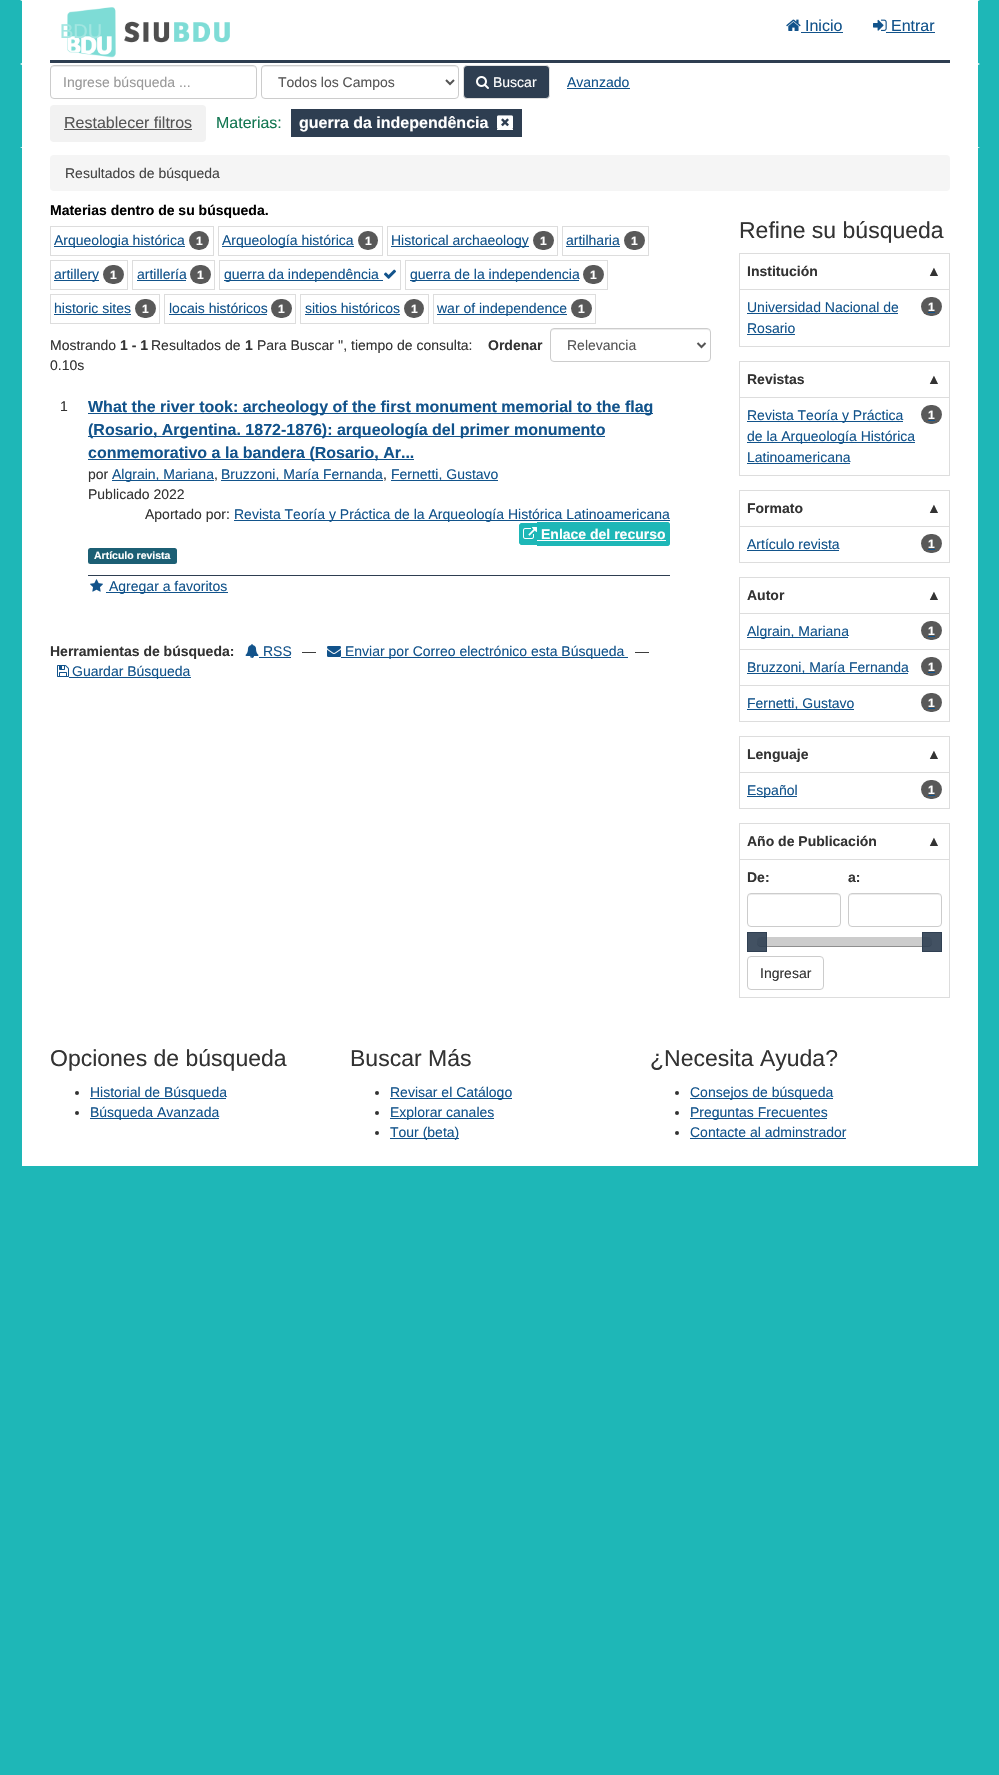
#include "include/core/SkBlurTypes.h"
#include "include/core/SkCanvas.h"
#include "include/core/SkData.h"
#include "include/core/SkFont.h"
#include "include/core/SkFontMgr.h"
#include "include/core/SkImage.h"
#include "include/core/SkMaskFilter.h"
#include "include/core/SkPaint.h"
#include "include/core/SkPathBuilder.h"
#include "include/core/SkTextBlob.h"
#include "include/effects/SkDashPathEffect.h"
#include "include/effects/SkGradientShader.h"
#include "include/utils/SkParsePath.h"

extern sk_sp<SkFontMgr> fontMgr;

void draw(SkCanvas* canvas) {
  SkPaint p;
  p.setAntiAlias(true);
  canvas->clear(SkColorSetRGB(30, 183, 183));
  p.setColor(SK_ColorWHITE);
  canvas->drawRect(SkRect::MakeLTRB(20, 0, 980, 148), p);
  p.setColor(SkColorSetRGB(30, 183, 183));
  canvas->drawPath(SkPathBuilder().moveTo(980, 0).lineTo(980, 64).lineTo(978, 63).lineTo(978, 1).close().detach(), p);
  canvas->drawPath(SkPathBuilder().moveTo(20, 64).lineTo(20, 0).lineTo(22, 1).lineTo(22, 63).close().detach(), p);
  canvas->drawImageRect(SkImages::DeferredFromEncodedData(SkData::MakeFromFileName("images/1.png")), SkRect::MakeLTRB(67, 7, 230, 58), SkSamplingOptions());
  p.setColor(SkColorSetRGB(46, 62, 81));
  canvas->drawRect(SkRect::MakeLTRB(50, 60, 950, 63), p);
  canvas->drawImageRect(SkImages::DeferredFromEncodedData(SkData::MakeFromFileName("images/2.png")), SkRect::MakeLTRB(786, 19, 801, 31), SkSamplingOptions());
  p.setColor(SkColorSetRGB(18, 83, 139));
  canvas->drawRect(SkRect::MakeLTRB(801, 32, 843, 33), p);
  canvas->drawImageRect(SkImages::DeferredFromEncodedData(SkData::MakeFromFileName("images/3.png")), SkRect::MakeLTRB(873, 19, 887, 31), SkSamplingOptions());
  canvas->drawRect(SkRect::MakeLTRB(886, 32, 935, 33), p);
  p.setColor(SkColorSetRGB(30, 183, 183));
  canvas->drawPath(SkPathBuilder().moveTo(980, 64).lineTo(980, 148).lineTo(978, 147).lineTo(978, 65).close().detach(), p);
  canvas->drawPath(SkPathBuilder().moveTo(20, 148).lineTo(20, 64).lineTo(22, 65).lineTo(22, 147).close().detach(), p);
  p.setColor(SkColorSetRGB(236, 236, 236));
  canvas->drawPath(SkPathBuilder().moveTo(54, 67).lineTo(253, 67).cubicTo(255, 67, 256, 68, 256, 70).cubicTo(256, 68, 255, 66, 253, 66).lineTo(54, 66).cubicTo(52, 66, 51, 68, 51, 70).cubicTo(51, 68, 52, 67, 54, 67).close().detach(), p);
  p.setStyle(SkPaint::kStroke_Style);
  p.setStrokeWidth(1);
  p.setColor(SkColorSetRGB(204, 204, 204));
  canvas->drawRoundRect(SkRect::MakeLTRB(50.5f, 65.5f, 256.5f, 98.5f), 3.5f, 3.5f, p);
  p.setStyle(SkPaint::kFill_Style);
  p.setColor(SkColorSetRGB(236, 236, 236));
  canvas->drawPath(SkPathBuilder().moveTo(265, 67).lineTo(455, 67).cubicTo(457, 67, 458, 68, 458, 70).cubicTo(458, 68, 457, 66, 455, 66).lineTo(265, 66).cubicTo(263, 66, 262, 68, 262, 70).cubicTo(262, 68, 263, 67, 265, 67).close().detach(), p);
  p.setStyle(SkPaint::kStroke_Style);
  p.setColor(SkColorSetRGB(204, 204, 204));
  canvas->drawRoundRect(SkRect::MakeLTRB(261.5f, 65.5f, 458.5f, 98.5f), 3.5f, 3.5f, p);
  p.setStrokeWidth(2);
  p.setColor(SkColorSetRGB(85, 85, 85));
  canvas->drawPath(SkPathBuilder().moveTo(446, 80).lineTo(450, 84).lineTo(454, 80).detach(), p);
  p.setStyle(SkPaint::kFill_Style);
  p.setColor(SkColorSetRGB(46, 62, 81));
  canvas->drawRoundRect(SkRect::MakeLTRB(463.5f, 65.5f, 549.5f, 98.5f), 3.5f, 3.5f, p);
  p.setStyle(SkPaint::kStroke_Style);
  p.setStrokeWidth(1);
  p.setColor(SkColorSetRGB(224, 224, 224));
  canvas->drawRoundRect(SkRect::MakeLTRB(463.5f, 65.5f, 549.5f, 98.5f), 3.5f, 3.5f, p);
  canvas->drawImageRect(SkImages::DeferredFromEncodedData(SkData::MakeFromFileName("images/4.png")), SkRect::MakeLTRB(476, 76, 489, 89), SkSamplingOptions());
  p.setStyle(SkPaint::kFill_Style);
  p.setColor(SkColorSetRGB(18, 83, 139));
  canvas->drawRect(SkRect::MakeLTRB(567, 88, 630, 89), p);
  p.setColor(SkColorSetRGB(242, 242, 242));
  canvas->drawRoundRect(SkRect::MakeLTRB(50, 105, 206, 142), 4, 4, p);
  p.setColor(SkColorSetRGB(85, 85, 85));
  canvas->drawRect(SkRect::MakeLTRB(64, 129, 192, 130), p);
  p.setColor(SkColorSetRGB(46, 62, 81));
  canvas->drawRect(SkRect::MakeLTRB(291, 109, 522, 137), p);
  canvas->drawImageRect(SkImages::DeferredFromEncodedData(SkData::MakeFromFileName("images/5.png")), SkRect::MakeLTRB(497, 115, 513, 129), SkSamplingOptions());
  p.setColor(SK_ColorWHITE);
  canvas->drawRect(SkRect::MakeLTRB(497, 129, 513, 130), p);
  canvas->drawRect(SkRect::MakeLTRB(22, 148, 978, 1166), p);
  p.setColor(SkColorSetRGB(245, 245, 245));
  canvas->drawRoundRect(SkRect::MakeLTRB(50, 155, 950, 191), 4, 4, p);
  p.setStyle(SkPaint::kStroke_Style);
  p.setColor(SkColorSetRGB(221, 221, 221));
  canvas->drawRect(SkRect::MakeLTRB(50.5f, 226.5f, 213.5f, 255.5f), p);
  p.setStyle(SkPaint::kFill_Style);
  p.setColor(SkColorSetRGB(18, 83, 139));
  canvas->drawRect(SkRect::MakeLTRB(54, 246, 185, 247), p);
  p.setColor(SkColorSetRGB(89, 89, 89));
  canvas->drawRoundRect(SkRect::MakeLTRB(189, 231, 209, 250), 9.5f, 9.5f, p);
  p.setStyle(SkPaint::kStroke_Style);
  p.setColor(SkColorSetRGB(221, 221, 221));
  canvas->drawRect(SkRect::MakeLTRB(218.5f, 226.5f, 382.5f, 255.5f), p);
  p.setStyle(SkPaint::kFill_Style);
  p.setColor(SkColorSetRGB(18, 83, 139));
  canvas->drawRect(SkRect::MakeLTRB(222, 246, 354, 247), p);
  p.setColor(SkColorSetRGB(89, 89, 89));
  canvas->drawRoundRect(SkRect::MakeLTRB(358, 231, 378, 250), 9.5f, 9.5f, p);
  p.setStyle(SkPaint::kStroke_Style);
  p.setColor(SkColorSetRGB(221, 221, 221));
  canvas->drawRect(SkRect::MakeLTRB(387.5f, 226.5f, 557.5f, 255.5f), p);
  p.setStyle(SkPaint::kFill_Style);
  p.setColor(SkColorSetRGB(18, 83, 139));
  canvas->drawRect(SkRect::MakeLTRB(391, 246, 529, 247), p);
  p.setColor(SkColorSetRGB(89, 89, 89));
  canvas->drawRoundRect(SkRect::MakeLTRB(533, 231, 554, 250), 9.5f, 9.5f, p);
  p.setStyle(SkPaint::kStroke_Style);
  p.setColor(SkColorSetRGB(221, 221, 221));
  canvas->drawRect(SkRect::MakeLTRB(562.5f, 226.5f, 648.5f, 255.5f), p);
  p.setStyle(SkPaint::kFill_Style);
  p.setColor(SkColorSetRGB(18, 83, 139));
  canvas->drawRect(SkRect::MakeLTRB(566, 246, 620, 247), p);
  p.setColor(SkColorSetRGB(89, 89, 89));
  canvas->drawRoundRect(SkRect::MakeLTRB(624, 231, 645, 250), 9.5f, 9.5f, p);
  p.setStyle(SkPaint::kStroke_Style);
  p.setColor(SkColorSetRGB(221, 221, 221));
  canvas->drawRect(SkRect::MakeLTRB(50.5f, 260.5f, 127.5f, 289.5f), p);
  p.setStyle(SkPaint::kFill_Style);
  p.setColor(SkColorSetRGB(18, 83, 139));
  canvas->drawRect(SkRect::MakeLTRB(54, 280, 99, 281), p);
  p.setColor(SkColorSetRGB(89, 89, 89));
  canvas->drawRoundRect(SkRect::MakeLTRB(103, 265, 124, 284), 9.5f, 9.5f, p);
  p.setStyle(SkPaint::kStroke_Style);
  p.setColor(SkColorSetRGB(221, 221, 221));
  canvas->drawRect(SkRect::MakeLTRB(132.5f, 260.5f, 214.5f, 289.5f), p);
  p.setStyle(SkPaint::kFill_Style);
  p.setColor(SkColorSetRGB(18, 83, 139));
  canvas->drawRect(SkRect::MakeLTRB(137, 280, 186, 281), p);
  p.setColor(SkColorSetRGB(89, 89, 89));
  canvas->drawRoundRect(SkRect::MakeLTRB(190, 265, 211, 284), 9.5f, 9.5f, p);
  p.setStyle(SkPaint::kStroke_Style);
  p.setColor(SkColorSetRGB(221, 221, 221));
  canvas->drawRect(SkRect::MakeLTRB(219.5f, 260.5f, 400.5f, 289.5f), p);
  p.setStyle(SkPaint::kFill_Style);
  p.setColor(SkColorSetRGB(18, 83, 139));
  canvas->drawRect(SkRect::MakeLTRB(224, 280, 383, 281), p);
  canvas->drawImageRect(SkImages::DeferredFromEncodedData(SkData::MakeFromFileName("images/6.png")), SkRect::MakeLTRB(384, 269, 396, 279), SkSamplingOptions());
  p.setStyle(SkPaint::kStroke_Style);
  p.setColor(SkColorSetRGB(221, 221, 221));
  canvas->drawRect(SkRect::MakeLTRB(405.5f, 260.5f, 607.5f, 289.5f), p);
  p.setStyle(SkPaint::kFill_Style);
  p.setColor(SkColorSetRGB(18, 83, 139));
  canvas->drawRect(SkRect::MakeLTRB(410, 280, 579, 281), p);
  p.setColor(SkColorSetRGB(89, 89, 89));
  canvas->drawRoundRect(SkRect::MakeLTRB(583, 265, 604, 284), 9.5f, 9.5f, p);
  p.setStyle(SkPaint::kStroke_Style);
  p.setColor(SkColorSetRGB(221, 221, 221));
  canvas->drawRect(SkRect::MakeLTRB(50.5f, 294.5f, 159.5f, 323.5f), p);
  p.setStyle(SkPaint::kFill_Style);
  p.setColor(SkColorSetRGB(18, 83, 139));
  canvas->drawRect(SkRect::MakeLTRB(54, 314, 131, 315), p);
  p.setColor(SkColorSetRGB(89, 89, 89));
  canvas->drawRoundRect(SkRect::MakeLTRB(135, 299, 156, 318), 9.5f, 9.5f, p);
  p.setStyle(SkPaint::kStroke_Style);
  p.setColor(SkColorSetRGB(221, 221, 221));
  canvas->drawRect(SkRect::MakeLTRB(164.5f, 294.5f, 295.5f, 323.5f), p);
  p.setStyle(SkPaint::kFill_Style);
  p.setColor(SkColorSetRGB(18, 83, 139));
  canvas->drawRect(SkRect::MakeLTRB(169, 314, 267, 315), p);
  p.setColor(SkColorSetRGB(89, 89, 89));
  canvas->drawRoundRect(SkRect::MakeLTRB(271, 299, 292, 318), 9.5f, 9.5f, p);
  p.setStyle(SkPaint::kStroke_Style);
  p.setColor(SkColorSetRGB(221, 221, 221));
  canvas->drawRect(SkRect::MakeLTRB(300.5f, 294.5f, 428.5f, 323.5f), p);
  p.setStyle(SkPaint::kFill_Style);
  p.setColor(SkColorSetRGB(18, 83, 139));
  canvas->drawRect(SkRect::MakeLTRB(305, 314, 400, 315), p);
  p.setColor(SkColorSetRGB(89, 89, 89));
  canvas->drawRoundRect(SkRect::MakeLTRB(404, 299, 424, 318), 9.5f, 9.5f, p);
  p.setStyle(SkPaint::kStroke_Style);
  p.setColor(SkColorSetRGB(221, 221, 221));
  canvas->drawRect(SkRect::MakeLTRB(433.5f, 294.5f, 595.5f, 323.5f), p);
  p.setStyle(SkPaint::kFill_Style);
  p.setColor(SkColorSetRGB(18, 83, 139));
  canvas->drawRect(SkRect::MakeLTRB(437, 314, 567, 315), p);
  p.setColor(SkColorSetRGB(89, 89, 89));
  canvas->drawRoundRect(SkRect::MakeLTRB(571, 299, 592, 318), 9.5f, 9.5f, p);
  p.setColor(SkColorSetRGB(236, 236, 236));
  canvas->drawPath(SkPathBuilder().moveTo(554, 330).lineTo(707, 330).cubicTo(709, 330, 710, 331, 710, 333).cubicTo(710, 331, 709, 329, 707, 329).lineTo(553, 329).cubicTo(551, 329, 551, 331, 551, 333).cubicTo(551, 331, 552, 330, 554, 330).close().detach(), p);
  p.setStyle(SkPaint::kStroke_Style);
  p.setColor(SkColorSetRGB(204, 204, 204));
  canvas->drawRoundRect(SkRect::MakeLTRB(550.5f, 328.5f, 710.5f, 361.5f), 3.5f, 3.5f, p);
  p.setStrokeWidth(2);
  p.setColor(SkColorSetRGB(85, 85, 85));
  canvas->drawPath(SkPathBuilder().moveTo(697.5f, 343).lineTo(701.5f, 347).lineTo(705.5f, 343).detach(), p);
  p.setStyle(SkPaint::kFill_Style);
  p.setColor(SkColorSetRGB(46, 62, 81));
  canvas->drawRect(SkRect::MakeLTRB(88, 575, 670, 576), p);
  p.setColor(SkColorSetRGB(18, 83, 139));
  canvas->drawRect(SkRect::MakeLTRB(88, 413, 653, 414), p);
  canvas->drawRect(SkRect::MakeLTRB(88, 436, 605, 437), p);
  canvas->drawRect(SkRect::MakeLTRB(88, 459, 414, 460), p);
  canvas->drawRect(SkRect::MakeLTRB(112, 480, 214, 481), p);
  canvas->drawRect(SkRect::MakeLTRB(221, 480, 383, 481), p);
  canvas->drawRect(SkRect::MakeLTRB(391, 480, 498, 481), p);
  canvas->drawRect(SkRect::MakeLTRB(234, 520, 670, 521), p);
  p.setColor(SkColorSetRGB(30, 183, 183));
  canvas->drawPath(SkPathBuilder().moveTo(522, 523).lineTo(537, 523).lineTo(537, 545).lineTo(522, 545).cubicTo(520.5f, 545, 519, 543.5f, 519, 542).lineTo(519, 526).cubicTo(519, 524.5f, 520.5f, 523, 522, 523).close().detach(), p);
  canvas->drawPath(SkPathBuilder(SkPathFillType::kEvenOdd).moveTo(522, 523).lineTo(537, 523).lineTo(537, 545).lineTo(522, 545).cubicTo(520.5f, 545, 519, 543.5f, 519, 542).lineTo(519, 526).cubicTo(519, 524.5f, 520.5f, 523, 522, 523).close().moveTo(522, 525).lineTo(537, 525).lineTo(537, 543).lineTo(522, 543).cubicTo(521.5f, 543, 521, 542.5f, 521, 542).lineTo(521, 526).cubicTo(521, 525.5f, 521.5f, 525, 522, 525).close().detach(), p);
  canvas->drawPath(SkPathBuilder().moveTo(537, 522).lineTo(667, 522).cubicTo(668.5f, 522, 670, 523.5f, 670, 525).lineTo(670, 543).cubicTo(670, 544.5f, 668.5f, 546, 667, 546).lineTo(537, 546).close().detach(), p);
  canvas->drawPath(SkPathBuilder(SkPathFillType::kEvenOdd).moveTo(537, 522).lineTo(667, 522).cubicTo(669, 522, 670, 523, 670, 525).lineTo(670, 543).cubicTo(670, 545, 669, 546, 667, 546).lineTo(537, 546).close().moveTo(537, 524).lineTo(667, 524).cubicTo(668, 524, 668, 524, 668, 525).lineTo(668, 543).cubicTo(668, 544, 668, 544, 667, 544).lineTo(537, 544).close().detach(), p);
  canvas->drawImageRect(SkImages::DeferredFromEncodedData(SkData::MakeFromFileName("images/7.png")), SkRect::MakeLTRB(523, 527, 537, 539), SkSamplingOptions());
  p.setColor(SK_ColorWHITE);
  canvas->drawRect(SkRect::MakeLTRB(537, 540, 666, 541), p);
  p.setColor(SkColorSetRGB(28, 95, 116));
  canvas->drawRoundRect(SkRect::MakeLTRB(88, 548, 177, 564), 2.5f, 2.5f, p);
  canvas->drawImageRect(SkImages::DeferredFromEncodedData(SkData::MakeFromFileName("images/8.png")), SkRect::MakeLTRB(90, 579, 103, 592), SkSamplingOptions());
  p.setColor(SkColorSetRGB(18, 83, 139));
  canvas->drawRect(SkRect::MakeLTRB(106, 592, 228, 593), p);
  canvas->drawImageRect(SkImages::DeferredFromEncodedData(SkData::MakeFromFileName("images/9.png")), SkRect::MakeLTRB(245, 644, 259, 658), SkSamplingOptions());
  canvas->drawRect(SkRect::MakeLTRB(259, 657, 291, 658), p);
  canvas->drawImageRect(SkImages::DeferredFromEncodedData(SkData::MakeFromFileName("images/10.png")), SkRect::MakeLTRB(327, 646, 341, 657), SkSamplingOptions());
  canvas->drawRect(SkRect::MakeLTRB(341, 657, 628, 658), p);
  canvas->drawImageRect(SkImages::DeferredFromEncodedData(SkData::MakeFromFileName("images/11.png")), SkRect::MakeLTRB(57, 665, 69, 677), SkSamplingOptions());
  canvas->drawRect(SkRect::MakeLTRB(69, 677, 191, 678), p);
  p.setStyle(SkPaint::kStroke_Style);
  p.setStrokeWidth(1);
  p.setColor(SkColorSetRGB(221, 221, 221));
  canvas->drawRect(SkRect::MakeLTRB(739.5f, 253.5f, 949.5f, 289.5f), p);
  p.setStyle(SkPaint::kFill_Style);
  canvas->drawRect(SkRect::MakeLTRB(949, 290, 950, 347), p);
  canvas->drawRect(SkRect::MakeLTRB(739, 290, 740, 347), p);
  canvas->drawRect(SkRect::MakeLTRB(740, 346, 949, 347), p);
  p.setColor(SkColorSetRGB(18, 83, 139));
  canvas->drawRect(SkRect::MakeLTRB(747, 313, 898, 314), p);
  canvas->drawRect(SkRect::MakeLTRB(747, 334, 795, 335), p);
  p.setColor(SkColorSetRGB(89, 89, 89));
  canvas->drawRoundRect(SkRect::MakeLTRB(921, 297, 942, 316), 9.5f, 9.5f, p);
  p.setColor(SkColorSetRGB(18, 83, 139));
  canvas->drawRect(SkRect::MakeLTRB(928, 312, 935, 313), p);
  p.setStyle(SkPaint::kStroke_Style);
  p.setColor(SkColorSetRGB(221, 221, 221));
  canvas->drawRect(SkRect::MakeLTRB(739.5f, 361.5f, 949.5f, 397.5f), p);
  p.setStyle(SkPaint::kFill_Style);
  canvas->drawRect(SkRect::MakeLTRB(949, 398, 950, 476), p);
  canvas->drawRect(SkRect::MakeLTRB(739, 398, 740, 476), p);
  canvas->drawRect(SkRect::MakeLTRB(740, 475, 949, 476), p);
  p.setColor(SkColorSetRGB(18, 83, 139));
  canvas->drawRect(SkRect::MakeLTRB(747, 421, 903, 422), p);
  canvas->drawRect(SkRect::MakeLTRB(747, 442, 915, 443), p);
  canvas->drawRect(SkRect::MakeLTRB(747, 463, 850, 464), p);
  p.setColor(SkColorSetRGB(89, 89, 89));
  canvas->drawRoundRect(SkRect::MakeLTRB(921, 405, 942, 424), 9.5f, 9.5f, p);
  p.setColor(SkColorSetRGB(18, 83, 139));
  canvas->drawRect(SkRect::MakeLTRB(928, 420, 935, 421), p);
  p.setStyle(SkPaint::kStroke_Style);
  p.setColor(SkColorSetRGB(221, 221, 221));
  canvas->drawRect(SkRect::MakeLTRB(739.5f, 490.5f, 949.5f, 526.5f), p);
  p.setStyle(SkPaint::kFill_Style);
  canvas->drawRect(SkRect::MakeLTRB(949, 527, 950, 563), p);
  canvas->drawRect(SkRect::MakeLTRB(739, 527, 740, 563), p);
  canvas->drawRect(SkRect::MakeLTRB(740, 562, 949, 563), p);
  p.setColor(SkColorSetRGB(18, 83, 139));
  canvas->drawRect(SkRect::MakeLTRB(747, 550, 839, 551), p);
  p.setColor(SkColorSetRGB(89, 89, 89));
  canvas->drawRoundRect(SkRect::MakeLTRB(921, 534, 942, 553), 9.5f, 9.5f, p);
  p.setColor(SkColorSetRGB(18, 83, 139));
  canvas->drawRect(SkRect::MakeLTRB(928, 549, 935, 550), p);
  p.setStyle(SkPaint::kStroke_Style);
  p.setColor(SkColorSetRGB(221, 221, 221));
  canvas->drawRect(SkRect::MakeLTRB(739.5f, 577.5f, 949.5f, 613.5f), p);
  p.setStyle(SkPaint::kFill_Style);
  canvas->drawRect(SkRect::MakeLTRB(949, 614, 950, 722), p);
  canvas->drawRect(SkRect::MakeLTRB(739, 614, 740, 722), p);
  canvas->drawRect(SkRect::MakeLTRB(740, 649, 949, 650), p);
  p.setColor(SkColorSetRGB(18, 83, 139));
  canvas->drawRect(SkRect::MakeLTRB(747, 637, 848, 638), p);
  p.setColor(SkColorSetRGB(89, 89, 89));
  canvas->drawRoundRect(SkRect::MakeLTRB(921, 621, 942, 640), 9.5f, 9.5f, p);
  p.setColor(SkColorSetRGB(18, 83, 139));
  canvas->drawRect(SkRect::MakeLTRB(928, 636, 935, 637), p);
  p.setColor(SkColorSetRGB(221, 221, 221));
  canvas->drawRect(SkRect::MakeLTRB(740, 685, 949, 686), p);
  p.setColor(SkColorSetRGB(18, 83, 139));
  canvas->drawRect(SkRect::MakeLTRB(747, 673, 908, 674), p);
  p.setColor(SkColorSetRGB(89, 89, 89));
  canvas->drawRoundRect(SkRect::MakeLTRB(921, 657, 942, 676), 9.5f, 9.5f, p);
  p.setColor(SkColorSetRGB(18, 83, 139));
  canvas->drawRect(SkRect::MakeLTRB(928, 672, 935, 673), p);
  p.setColor(SkColorSetRGB(221, 221, 221));
  canvas->drawRect(SkRect::MakeLTRB(740, 721, 949, 722), p);
  p.setColor(SkColorSetRGB(18, 83, 139));
  canvas->drawRect(SkRect::MakeLTRB(747, 709, 854, 710), p);
  p.setColor(SkColorSetRGB(89, 89, 89));
  canvas->drawRoundRect(SkRect::MakeLTRB(921, 693, 942, 712), 9.5f, 9.5f, p);
  p.setColor(SkColorSetRGB(18, 83, 139));
  canvas->drawRect(SkRect::MakeLTRB(928, 708, 935, 709), p);
  p.setStyle(SkPaint::kStroke_Style);
  p.setColor(SkColorSetRGB(221, 221, 221));
  canvas->drawRect(SkRect::MakeLTRB(739.5f, 736.5f, 949.5f, 772.5f), p);
  p.setStyle(SkPaint::kFill_Style);
  canvas->drawRect(SkRect::MakeLTRB(949, 773, 950, 809), p);
  canvas->drawRect(SkRect::MakeLTRB(739, 773, 740, 809), p);
  canvas->drawRect(SkRect::MakeLTRB(740, 808, 949, 809), p);
  p.setColor(SkColorSetRGB(18, 83, 139));
  canvas->drawRect(SkRect::MakeLTRB(747, 796, 797, 797), p);
  p.setColor(SkColorSetRGB(89, 89, 89));
  canvas->drawRoundRect(SkRect::MakeLTRB(921, 780, 942, 799), 9.5f, 9.5f, p);
  p.setColor(SkColorSetRGB(18, 83, 139));
  canvas->drawRect(SkRect::MakeLTRB(928, 795, 935, 796), p);
  p.setStyle(SkPaint::kStroke_Style);
  p.setColor(SkColorSetRGB(221, 221, 221));
  canvas->drawRect(SkRect::MakeLTRB(739.5f, 823.5f, 949.5f, 859.5f), p);
  p.setStyle(SkPaint::kFill_Style);
  canvas->drawRect(SkRect::MakeLTRB(949, 860, 950, 998), p);
  canvas->drawRect(SkRect::MakeLTRB(739, 860, 740, 998), p);
  canvas->drawRect(SkRect::MakeLTRB(740, 997, 949, 998), p);
  p.setColor(SkColorSetRGB(236, 236, 236));
  canvas->drawPath(SkPathBuilder().moveTo(751, 895).lineTo(837, 895).cubicTo(839, 895, 840, 896, 840, 898).cubicTo(840, 890, 826, 894, 823, 894).lineTo(765, 894).cubicTo(762, 894, 748, 890, 748, 898).cubicTo(748, 896, 749, 895, 751, 895).close().detach(), p);
  p.setStyle(SkPaint::kStroke_Style);
  p.setColor(SkColorSetRGB(204, 204, 204));
  canvas->drawRoundRect(SkRect::MakeLTRB(747.5f, 893.5f, 840.5f, 926.5f), 3.5f, 3.5f, p);
  p.setStyle(SkPaint::kFill_Style);
  p.setColor(SkColorSetRGB(236, 236, 236));
  canvas->drawPath(SkPathBuilder().moveTo(852, 895).lineTo(938, 895).cubicTo(940, 895, 941, 896, 941, 898).cubicTo(941, 890, 927, 894, 924, 894).lineTo(866, 894).cubicTo(863, 894, 849, 890, 849, 898).cubicTo(849, 896, 850, 895, 852, 895).close().detach(), p);
  p.setStyle(SkPaint::kStroke_Style);
  p.setColor(SkColorSetRGB(204, 204, 204));
  canvas->drawRoundRect(SkRect::MakeLTRB(848.5f, 893.5f, 941.5f, 926.5f), 3.5f, 3.5f, p);
  p.setStyle(SkPaint::kFill_Style);
  canvas->drawRoundRect(SkRect::MakeLTRB(757, 937, 932, 947), 4, 4, p);
  p.setColor(SkColorSetARGB(77, 0, 0, 0));
  canvas->drawPath(SkPathBuilder().moveTo(757, 942).lineTo(757, 943).cubicTo(757, 945, 759, 947, 761, 947).lineTo(928, 947).cubicTo(930, 947, 932, 945, 932, 943).lineTo(932, 942).cubicTo(932, 944, 930, 946, 928, 946).lineTo(761, 946).cubicTo(759, 946, 757, 944, 757, 942).close().detach(), p);
  p.setColor(SkColorSetARGB(230, 46, 62, 81));
  canvas->drawRect(SkRect::MakeLTRB(747, 932, 767, 952), p);
  p.setStyle(SkPaint::kStroke_Style);
  canvas->drawRect(SkRect::MakeLTRB(747.5f, 932.5f, 766.5f, 951.5f), p);
  p.setStyle(SkPaint::kFill_Style);
  canvas->drawRect(SkRect::MakeLTRB(922, 932, 942, 952), p);
  p.setStyle(SkPaint::kStroke_Style);
  canvas->drawRect(SkRect::MakeLTRB(922.5f, 932.5f, 941.5f, 951.5f), p);
  p.setColor(SkColorSetRGB(204, 204, 204));
  canvas->drawRoundRect(SkRect::MakeLTRB(747.5f, 956.5f, 823.5f, 989.5f), 3.5f, 3.5f, p);
  p.setStyle(SkPaint::kFill_Style);
  p.setColor(SkColorSetRGB(51, 51, 51));
  canvas->drawCircle(77, 1093, 2, p);
  p.setColor(SkColorSetRGB(18, 83, 139));
  canvas->drawRect(SkRect::MakeLTRB(90, 1098, 226, 1099), p);
  p.setColor(SkColorSetRGB(51, 51, 51));
  canvas->drawCircle(77, 1113, 2, p);
  p.setColor(SkColorSetRGB(18, 83, 139));
  canvas->drawRect(SkRect::MakeLTRB(90, 1118, 219, 1119), p);
  p.setColor(SkColorSetRGB(51, 51, 51));
  canvas->drawCircle(377, 1093, 2, p);
  p.setColor(SkColorSetRGB(18, 83, 139));
  canvas->drawRect(SkRect::MakeLTRB(390, 1098, 512, 1099), p);
  p.setColor(SkColorSetRGB(51, 51, 51));
  canvas->drawCircle(377, 1113, 2, p);
  p.setColor(SkColorSetRGB(18, 83, 139));
  canvas->drawRect(SkRect::MakeLTRB(390, 1118, 494, 1119), p);
  p.setColor(SkColorSetRGB(51, 51, 51));
  canvas->drawCircle(377, 1133, 2, p);
  p.setColor(SkColorSetRGB(18, 83, 139));
  canvas->drawRect(SkRect::MakeLTRB(390, 1138, 459, 1139), p);
  p.setColor(SkColorSetRGB(51, 51, 51));
  canvas->drawCircle(677, 1093, 2, p);
  p.setColor(SkColorSetRGB(18, 83, 139));
  canvas->drawRect(SkRect::MakeLTRB(690, 1098, 833, 1099), p);
  p.setColor(SkColorSetRGB(51, 51, 51));
  canvas->drawCircle(677, 1113, 2, p);
  p.setColor(SkColorSetRGB(18, 83, 139));
  canvas->drawRect(SkRect::MakeLTRB(690, 1118, 827, 1119), p);
  p.setColor(SkColorSetRGB(51, 51, 51));
  canvas->drawCircle(677, 1133, 2, p);
  p.setColor(SkColorSetRGB(18, 83, 139));
  canvas->drawRect(SkRect::MakeLTRB(690, 1138, 846, 1139), p);
  SkFont font1(fontMgr->matchFamilyStyle("Liberation Sans", SkFontStyle::Normal()), 20);
  font1.setSubpixel(true);
  p.setColor(SkColorSetRGB(162, 230, 225));
  canvas->drawString("BDU", 60, 38, font1, p);
  SkFont font2(fontMgr->matchFamilyStyle("Liberation Sans", SkFontStyle::Normal()), 16);
  font2.setSubpixel(true);
  p.setColor(SkColorSetRGB(18, 83, 139));
  canvas->drawString("Inicio", 805, 31, font2, p);
  canvas->drawString("Entrar", 891, 31, font2, p);
  SkFont font3(fontMgr->matchFamilyStyle("Liberation Sans", SkFontStyle::Normal()), 14);
  font3.setSubpixel(true);
  p.setColor(SkColorSetRGB(153, 153, 153));
  canvas->drawString("Ingrese búsqueda ...", 63, 87, font3, p);
  p.setColor(SkColorSetRGB(85, 85, 85));
  canvas->drawString("Todos los Campos", 278, 87, font3, p);
  p.setColor(SK_ColorWHITE);
  canvas->drawString("Buscar", 493, 87, font3, p);
  p.setColor(SkColorSetRGB(18, 83, 139));
  canvas->drawString("Avanzado", 567, 87, font3, p);
  p.setColor(SkColorSetRGB(85, 85, 85));
  canvas->drawString("Restablecer filtros", 64, 128, font2, p);
  p.setColor(SkColorSetRGB(19, 119, 82));
  canvas->drawString("Materias:", 216, 128, font2, p);
  SkFont font4(fontMgr->matchFamilyStyle("Liberation Sans", SkFontStyle::Bold()), 16);
  font4.setSubpixel(true);
  p.setColor(SK_ColorWHITE);
  canvas->drawString("guerra da independência", 299, 128, font4, p);
  p.setColor(SkColorSetRGB(68, 68, 68));
  canvas->drawString("Resultados de búsqueda", 65, 178, font3, p);
  SkFont font5(fontMgr->matchFamilyStyle("Liberation Sans", SkFontStyle::Bold()), 14);
  font5.setSubpixel(true);
  p.setColor(SK_ColorBLACK);
  canvas->drawString("Materias dentro de su búsqueda.", 50, 215, font5, p);
  p.setColor(SkColorSetRGB(18, 83, 139));
  canvas->drawString("Arqueologia histórica", 54, 245, font3, p);
  SkFont font6(fontMgr->matchFamilyStyle("Liberation Sans", SkFontStyle::Bold()), 12);
  font6.setSubpixel(true);
  p.setColor(SK_ColorWHITE);
  canvas->drawString("1", 196, 245, font6, p);
  p.setColor(SkColorSetRGB(18, 83, 139));
  canvas->drawString("Arqueología histórica", 222, 245, font3, p);
  p.setColor(SK_ColorWHITE);
  canvas->drawString("1", 365, 245, font6, p);
  p.setColor(SkColorSetRGB(18, 83, 139));
  canvas->drawString("Historical archaeology", 391, 245, font3, p);
  p.setColor(SK_ColorWHITE);
  canvas->drawString("1", 540, 245, font6, p);
  p.setColor(SkColorSetRGB(18, 83, 139));
  canvas->drawString("artilharia", 566, 245, font3, p);
  p.setColor(SK_ColorWHITE);
  canvas->drawString("1", 631, 245, font6, p);
  p.setColor(SkColorSetRGB(18, 83, 139));
  canvas->drawString("artillery", 54, 279, font3, p);
  p.setColor(SK_ColorWHITE);
  canvas->drawString("1", 110, 279, font6, p);
  p.setColor(SkColorSetRGB(18, 83, 139));
  canvas->drawString("artillería", 137, 279, font3, p);
  p.setColor(SK_ColorWHITE);
  canvas->drawString("1", 197, 279, font6, p);
  p.setColor(SkColorSetRGB(18, 83, 139));
  canvas->drawString("guerra da independência", 224, 279, font3, p);
  canvas->drawString("guerra de la independencia", 410, 279, font3, p);
  p.setColor(SK_ColorWHITE);
  canvas->drawString("1", 590, 279, font6, p);
  p.setColor(SkColorSetRGB(18, 83, 139));
  canvas->drawString("historic sites", 54, 313, font3, p);
  p.setColor(SK_ColorWHITE);
  canvas->drawString("1", 142, 313, font6, p);
  p.setColor(SkColorSetRGB(18, 83, 139));
  canvas->drawString("locais históricos", 169, 313, font3, p);
  p.setColor(SK_ColorWHITE);
  canvas->drawString("1", 278, 313, font6, p);
  p.setColor(SkColorSetRGB(18, 83, 139));
  canvas->drawString("sitios históricos", 305, 313, font3, p);
  p.setColor(SK_ColorWHITE);
  canvas->drawString("1", 411, 313, font6, p);
  p.setColor(SkColorSetRGB(18, 83, 139));
  canvas->drawString("war of independence", 437, 313, font3, p);
  p.setColor(SK_ColorWHITE);
  canvas->drawString("1", 578, 313, font6, p);
  p.setColor(SkColorSetRGB(51, 51, 51));
  canvas->drawString("Mostrando", 50, 350, font3, p);
  canvas->drawString("1 - 1", 120, 350, font5, p);
  canvas->drawString("Resultados de", 151, 350, font3, p);
  canvas->drawString("1", 245, 350, font5, p);
  canvas->drawString("Para Buscar '', tiempo de consulta:", 257, 350, font3, p);
  canvas->drawString("0.10s", 50, 370, font3, p);
  canvas->drawString("Ordenar", 488, 350, font5, p);
  p.setColor(SkColorSetRGB(85, 85, 85));
  canvas->drawString("Relevancia", 567, 350, font3, p);
  p.setColor(SkColorSetRGB(51, 51, 51));
  canvas->drawString("1", 60, 411, font3, p);
  p.setColor(SkColorSetRGB(18, 83, 139));
  canvas->drawString("What the river took: archeology of the first monument memorial to the flag", 88, 412, font4, p);
  canvas->drawString("(Rosario, Argentina. 1872-1876): arqueología del primer monumento", 88, 435, font4, p);
  canvas->drawString("conmemorativo a la bandera (Rosario, Ar...", 88, 458, font4, p);
  p.setColor(SkColorSetRGB(51, 51, 51));
  canvas->drawString("por", 88, 479, font3, p);
  p.setColor(SkColorSetRGB(18, 83, 139));
  canvas->drawString("Algrain, Mariana", 112, 479, font3, p);
  p.setColor(SkColorSetRGB(51, 51, 51));
  canvas->drawString(",", 214, 479, font3, p);
  p.setColor(SkColorSetRGB(18, 83, 139));
  canvas->drawString("Bruzzoni, María Fernanda", 221, 479, font3, p);
  p.setColor(SkColorSetRGB(51, 51, 51));
  canvas->drawString(",", 383, 479, font3, p);
  p.setColor(SkColorSetRGB(18, 83, 139));
  canvas->drawString("Fernetti, Gustavo", 391, 479, font3, p);
  p.setColor(SkColorSetRGB(51, 51, 51));
  canvas->drawString("Publicado 2022", 88, 499, font3, p);
  canvas->drawString("Aportado por:", 145, 519, font3, p);
  p.setColor(SkColorSetRGB(18, 83, 139));
  canvas->drawString("Revista Teoría y Práctica de la Arqueología Histórica Latinoamericana", 234, 519, font3, p);
  p.setColor(SK_ColorWHITE);
  canvas->drawString("Enlace del recurso", 541, 539, font5, p);
  SkFont font7(fontMgr->matchFamilyStyle("Liberation Sans", SkFontStyle::Bold()), 10.5f);
  font7.setSubpixel(true);
  canvas->drawString("Artículo revista", 94, 559, font7, p);
  p.setColor(SkColorSetRGB(18, 83, 139));
  canvas->drawString("Agregar a favoritos", 109, 591, font3, p);
  p.setColor(SkColorSetRGB(51, 51, 51));
  canvas->drawString("Herramientas de búsqueda:", 50, 656, font5, p);
  p.setColor(SkColorSetRGB(18, 83, 139));
  canvas->drawString("RSS", 263, 656, font3, p);
  p.setColor(SkColorSetRGB(51, 51, 51));
  canvas->drawString("—", 302, 656, font3, p);
  p.setColor(SkColorSetRGB(18, 83, 139));
  canvas->drawString("Enviar por Correo electrónico esta Búsqueda", 345, 656, font3, p);
  p.setColor(SkColorSetRGB(51, 51, 51));
  canvas->drawString("—", 635, 656, font3, p);
  p.setColor(SkColorSetRGB(18, 83, 139));
  canvas->drawString("Guardar Búsqueda", 72, 676, font3, p);
  SkFont font8(fontMgr->matchFamilyStyle("Liberation Sans", SkFontStyle::Normal()), 23);
  font8.setSubpixel(true);
  p.setColor(SkColorSetRGB(51, 51, 51));
  canvas->drawString("Refine su búsqueda", 739, 238, font8, p);
  canvas->drawString("Institución", 747, 276, font5, p);
  canvas->drawString("▲", 927, 276, font5, p);
  p.setColor(SkColorSetRGB(18, 83, 139));
  canvas->drawString("Universidad Nacional de", 747, 312, font3, p);
  canvas->drawString("Rosario", 747, 333, font3, p);
  p.setColor(SK_ColorWHITE);
  canvas->drawString("1", 928, 311, font6, p);
  p.setColor(SkColorSetRGB(51, 51, 51));
  canvas->drawString("Revistas", 747, 384, font5, p);
  canvas->drawString("▲", 927, 384, font5, p);
  p.setColor(SkColorSetRGB(18, 83, 139));
  canvas->drawString("Revista Teoría y Práctica", 747, 420, font3, p);
  canvas->drawString("de la Arqueología Histórica", 747, 441, font3, p);
  canvas->drawString("Latinoamericana", 747, 462, font3, p);
  p.setColor(SK_ColorWHITE);
  canvas->drawString("1", 928, 419, font6, p);
  p.setColor(SkColorSetRGB(51, 51, 51));
  canvas->drawString("Formato", 747, 513, font5, p);
  canvas->drawString("▲", 927, 513, font5, p);
  p.setColor(SkColorSetRGB(18, 83, 139));
  canvas->drawString("Artículo revista", 747, 549, font3, p);
  p.setColor(SK_ColorWHITE);
  canvas->drawString("1", 928, 548, font6, p);
  p.setColor(SkColorSetRGB(51, 51, 51));
  canvas->drawString("Autor", 747, 600, font5, p);
  canvas->drawString("▲", 927, 600, font5, p);
  p.setColor(SkColorSetRGB(18, 83, 139));
  canvas->drawString("Algrain, Mariana", 747, 636, font3, p);
  p.setColor(SK_ColorWHITE);
  canvas->drawString("1", 928, 635, font6, p);
  p.setColor(SkColorSetRGB(18, 83, 139));
  canvas->drawString("Bruzzoni, María Fernanda", 747, 672, font3, p);
  p.setColor(SK_ColorWHITE);
  canvas->drawString("1", 928, 671, font6, p);
  p.setColor(SkColorSetRGB(18, 83, 139));
  canvas->drawString("Fernetti, Gustavo", 747, 708, font3, p);
  p.setColor(SK_ColorWHITE);
  canvas->drawString("1", 928, 707, font6, p);
  p.setColor(SkColorSetRGB(51, 51, 51));
  canvas->drawString("Lenguaje", 747, 759, font5, p);
  canvas->drawString("▲", 927, 759, font5, p);
  p.setColor(SkColorSetRGB(18, 83, 139));
  canvas->drawString("Español", 747, 795, font3, p);
  p.setColor(SK_ColorWHITE);
  canvas->drawString("1", 928, 794, font6, p);
  p.setColor(SkColorSetRGB(51, 51, 51));
  canvas->drawString("Año de Publicación", 747, 846, font5, p);
  canvas->drawString("▲", 927, 846, font5, p);
  canvas->drawString("De:", 747, 882, font5, p);
  canvas->drawString("a:", 848, 882, font5, p);
  canvas->drawString("Ingresar", 760, 978, font3, p);
  canvas->drawString("Opciones de búsqueda", 50, 1066, font8, p);
  p.setColor(SkColorSetRGB(18, 83, 139));
  canvas->drawString("Historial de Búsqueda", 90, 1097, font3, p);
  canvas->drawString("Búsqueda Avanzada", 90, 1117, font3, p);
  p.setColor(SkColorSetRGB(51, 51, 51));
  canvas->drawString("Buscar Más", 350, 1066, font8, p);
  p.setColor(SkColorSetRGB(18, 83, 139));
  canvas->drawString("Revisar el Catálogo", 390, 1097, font3, p);
  canvas->drawString("Explorar canales", 390, 1117, font3, p);
  canvas->drawString("Tour (beta)", 390, 1137, font3, p);
  p.setColor(SkColorSetRGB(51, 51, 51));
  canvas->drawString("¿Necesita Ayuda?", 650, 1066, font8, p);
  p.setColor(SkColorSetRGB(18, 83, 139));
  canvas->drawString("Consejos de búsqueda", 690, 1097, font3, p);
  canvas->drawString("Preguntas Frecuentes", 690, 1117, font3, p);
  canvas->drawString("Contacte al adminstrador", 690, 1137, font3, p);
}
